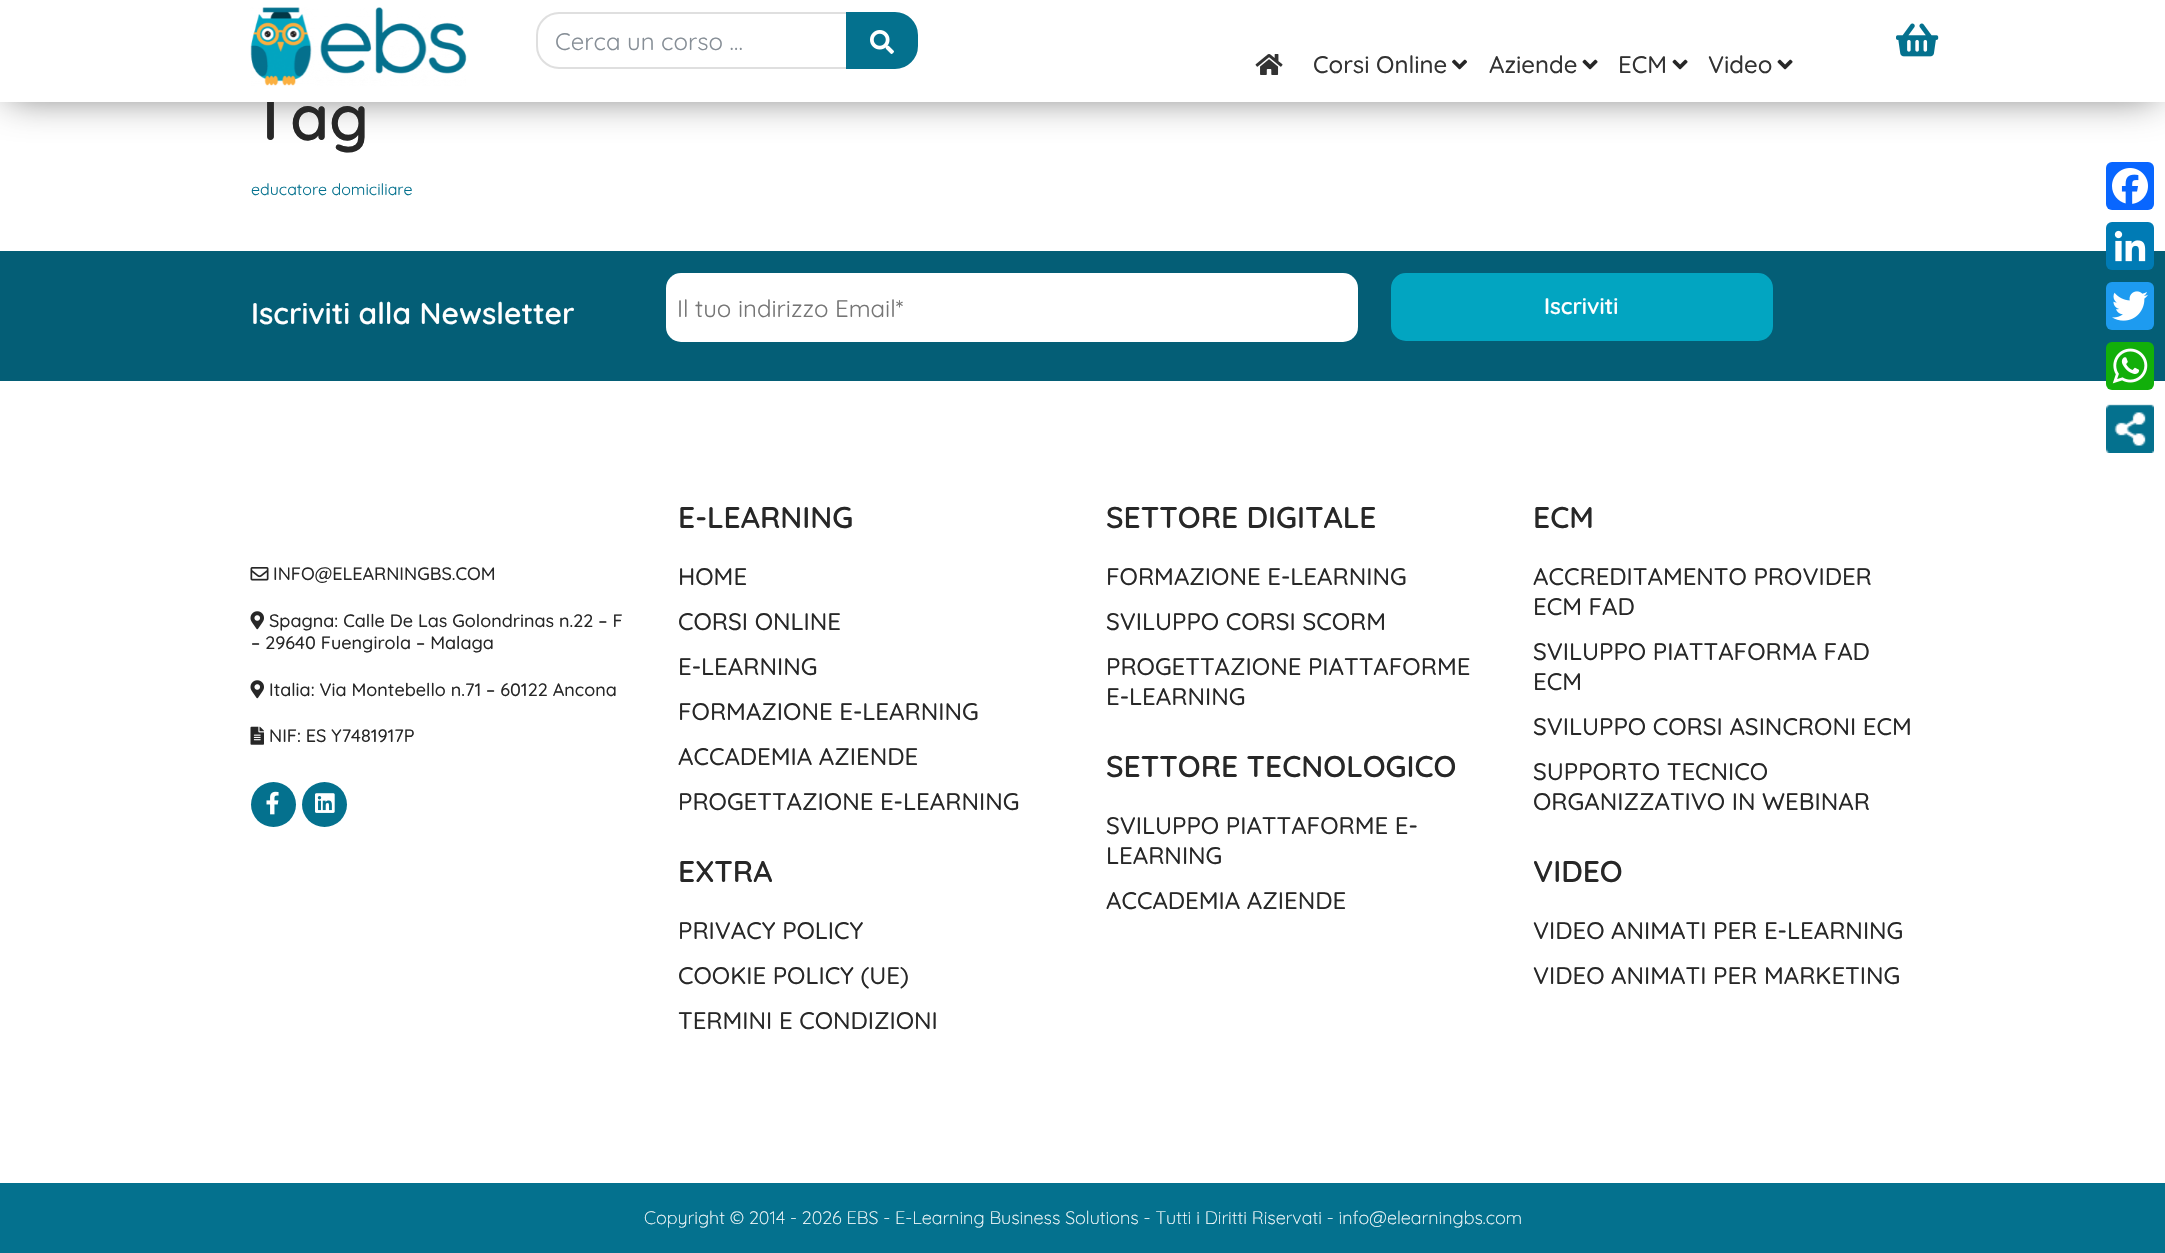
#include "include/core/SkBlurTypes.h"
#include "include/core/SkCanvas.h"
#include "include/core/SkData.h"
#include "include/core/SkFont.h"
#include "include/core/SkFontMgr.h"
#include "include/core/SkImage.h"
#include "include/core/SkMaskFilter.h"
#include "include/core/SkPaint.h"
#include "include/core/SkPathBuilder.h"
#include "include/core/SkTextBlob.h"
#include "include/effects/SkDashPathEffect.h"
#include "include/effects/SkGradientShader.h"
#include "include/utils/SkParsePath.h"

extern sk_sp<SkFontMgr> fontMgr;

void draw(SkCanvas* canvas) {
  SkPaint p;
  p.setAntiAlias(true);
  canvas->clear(SK_ColorWHITE);
  p.setColor(SkColorSetARGB(150, 0, 0, 0));
  p.setMaskFilter(SkMaskFilter::MakeBlur(kNormal_SkBlurStyle, 19.5f));
  canvas->drawRect(SkRect::MakeLTRB(8, 12, 2156, 96), p);
  p.setMaskFilter(nullptr);
  p.setColor(SkColorSetRGB(4, 94, 118));
  canvas->drawRect(SkRect::MakeLTRB(0, 251, 2165, 381), p);
  p.setColor(SK_ColorWHITE);
  canvas->drawRoundRect(SkRect::MakeLTRB(666, 273, 1358, 342), 15, 15, p);
  p.setColor(SkColorSetRGB(2, 165, 193));
  canvas->drawRoundRect(SkRect::MakeLTRB(1392, 274, 1772, 340), 14, 14, p);
  p.setStyle(SkPaint::kStroke_Style);
  p.setStrokeWidth(2);
  canvas->drawRoundRect(SkRect::MakeLTRB(1392, 274, 1772, 340), 14, 14, p);
  p.setStyle(SkPaint::kFill_Style);
  p.setColor(SkColorSetRGB(8, 102, 255));
  canvas->drawRoundRect(SkRect::MakeLTRB(2106, 162, 2154, 210), 6, 6, p);
  canvas->drawImageRect(SkImages::DeferredFromEncodedData(SkData::MakeFromFileName("images/7.png")), SkRect::MakeLTRB(2112, 168, 2148, 204), SkSamplingOptions());
  p.setColor(SkColorSetRGB(0, 123, 181));
  canvas->drawRoundRect(SkRect::MakeLTRB(2106, 222, 2154, 270), 6, 6, p);
  canvas->drawImageRect(SkImages::DeferredFromEncodedData(SkData::MakeFromFileName("images/8.png")), SkRect::MakeLTRB(2114, 230, 2146, 262), SkSamplingOptions());
  p.setColor(SkColorSetRGB(29, 155, 240));
  canvas->drawRoundRect(SkRect::MakeLTRB(2106, 282, 2154, 330), 6, 6, p);
  canvas->drawImageRect(SkImages::DeferredFromEncodedData(SkData::MakeFromFileName("images/9.png")), SkRect::MakeLTRB(2112, 291, 2148, 321), SkSamplingOptions());
  p.setColor(SkColorSetRGB(18, 175, 10));
  canvas->drawRoundRect(SkRect::MakeLTRB(2106, 342, 2154, 390), 6, 6, p);
  canvas->drawImageRect(SkImages::DeferredFromEncodedData(SkData::MakeFromFileName("images/10.png")), SkRect::MakeLTRB(2112, 348, 2148, 384), SkSamplingOptions());
  canvas->drawImageRect(SkImages::DeferredFromEncodedData(SkData::MakeFromFileName("images/11.png")), SkRect::MakeLTRB(2106, 404, 2154, 453), SkSamplingOptions());
  canvas->drawImageRect(SkImages::DeferredFromEncodedData(SkData::MakeFromFileName("images/12.png")), SkRect::MakeLTRB(250, 567, 269, 581), SkSamplingOptions());
  canvas->drawImageRect(SkImages::DeferredFromEncodedData(SkData::MakeFromFileName("images/13.png")), SkRect::MakeLTRB(250, 611, 264, 630), SkSamplingOptions());
  canvas->drawImageRect(SkImages::DeferredFromEncodedData(SkData::MakeFromFileName("images/13.png")), SkRect::MakeLTRB(250, 680, 264, 699), SkSamplingOptions());
  canvas->drawImageRect(SkImages::DeferredFromEncodedData(SkData::MakeFromFileName("images/14.png")), SkRect::MakeLTRB(250, 726, 264, 745), SkSamplingOptions());
  p.setColor(SkColorSetRGB(4, 113, 142));
  canvas->drawCircle(273.5f, 804.5f, 22.5f, p);
  canvas->drawImageRect(SkImages::DeferredFromEncodedData(SkData::MakeFromFileName("images/15.png")), SkRect::MakeLTRB(266, 791, 279, 815), SkSamplingOptions());
  canvas->drawCircle(324.5f, 804.5f, 22.5f, p);
  canvas->drawImageRect(SkImages::DeferredFromEncodedData(SkData::MakeFromFileName("images/16.png")), SkRect::MakeLTRB(315, 793, 335, 813), SkSamplingOptions());
  canvas->drawRect(SkRect::MakeLTRB(0, 1183, 2165, 1253), p);
  SkFont font1(fontMgr->matchFamilyStyle("Quicksand", SkFontStyle(600, SkFontStyle::kNormal_Width, SkFontStyle::kUpright_Slant)), 63);
  font1.setSubpixel(true);
  p.setColor(SkColorSetRGB(39, 39, 39));
  canvas->drawString("Tag", 251, 140, font1, p);
  p.setColor(SK_ColorWHITE);
  canvas->drawRect(SkRect::MakeLTRB(0, 0, 2165, 102), p);
  p.setStyle(SkPaint::kStroke_Style);
  p.setColor(SkColorSetRGB(223, 223, 223));
  canvas->drawPath(SkPathBuilder().moveTo(559, 13).lineTo(847, 13).lineTo(847, 68).lineTo(559, 68).cubicTo(547, 68, 537, 58, 537, 46).lineTo(537, 35).cubicTo(537, 23, 547, 13, 559, 13).close().detach(), p);
  p.setStyle(SkPaint::kFill_Style);
  p.setColor(SkColorSetRGB(4, 113, 142));
  canvas->drawPath(SkPathBuilder().moveTo(847, 13).lineTo(895, 13).cubicTo(907, 13, 917, 23, 917, 35).lineTo(917, 46).cubicTo(917, 58, 907, 68, 895, 68).lineTo(847, 68).close().detach(), p);
  p.setStyle(SkPaint::kStroke_Style);
  canvas->drawPath(SkPathBuilder().moveTo(847, 13).lineTo(895, 13).cubicTo(907, 13, 917, 23, 917, 35).lineTo(917, 46).cubicTo(917, 58, 907, 68, 895, 68).lineTo(847, 68).close().detach(), p);
  canvas->drawImageRect(SkImages::DeferredFromEncodedData(SkData::MakeFromFileName("images/2.png")), SkRect::MakeLTRB(870, 30, 894, 54), SkSamplingOptions());
  SkFont font2(fontMgr->matchFamilyStyle("Quicksand", SkFontStyle::Normal()), 24);
  font2.setSubpixel(true);
  p.setStyle(SkPaint::kFill_Style);
  p.setColor(SkColorSetRGB(134, 142, 150));
  canvas->drawString("Cerca un corso …", 555, 50, font2, p);
  canvas->drawImageRect(SkImages::DeferredFromEncodedData(SkData::MakeFromFileName("images/3.png")), SkRect::MakeLTRB(1896, 23, 1939, 57), SkSamplingOptions());
  canvas->drawImageRect(SkImages::DeferredFromEncodedData(SkData::MakeFromFileName("images/6.png")), SkRect::MakeLTRB(1777, 59, 1793, 70), SkSamplingOptions());
  canvas->drawImageRect(SkImages::DeferredFromEncodedData(SkData::MakeFromFileName("images/6.png")), SkRect::MakeLTRB(1672, 59, 1688, 70), SkSamplingOptions());
  canvas->drawImageRect(SkImages::DeferredFromEncodedData(SkData::MakeFromFileName("images/6.png")), SkRect::MakeLTRB(1582, 59, 1598, 70), SkSamplingOptions());
  canvas->drawImageRect(SkImages::DeferredFromEncodedData(SkData::MakeFromFileName("images/5.png")), SkRect::MakeLTRB(1452, 59, 1467, 70), SkSamplingOptions());
  SkFont font3(fontMgr->matchFamilyStyle("Quicksand", SkFontStyle(500, SkFontStyle::kNormal_Width, SkFontStyle::kUpright_Slant)), 24);
  font3.setSubpixel(true);
  p.setColor(SkColorSetRGB(50, 50, 50));
  canvas->drawString("Video", 1708, 73, font3, p);
  canvas->drawString("ECM", 1618, 73, font3, p);
  canvas->drawString("Aziende", 1489, 73, font3, p);
  canvas->drawString("Corsi Online", 1313, 73, font3, p);
  canvas->drawImageRect(SkImages::DeferredFromEncodedData(SkData::MakeFromFileName("images/4.png")), SkRect::MakeLTRB(1255, 54, 1283, 75), SkSamplingOptions());
  canvas->drawImageRect(SkImages::DeferredFromEncodedData(SkData::MakeFromFileName("images/1.png")), SkRect::MakeLTRB(250, 7, 467, 86), SkSamplingOptions());
  SkFont font4(fontMgr->matchFamilyStyle("Quicksand", SkFontStyle::Normal()), 16);
  font4.setSubpixel(true);
  p.setColor(SkColorSetRGB(4, 113, 142));
  canvas->drawString("educatore domiciliare", 251, 195, font4, p);
  SkFont font5(fontMgr->matchFamilyStyle("Quicksand", SkFontStyle(600, SkFontStyle::kNormal_Width, SkFontStyle::kUpright_Slant)), 30);
  font5.setSubpixel(true);
  p.setColor(SK_ColorWHITE);
  canvas->drawString("Iscriviti alla Newsletter", 251, 324, font5, p);
  p.setColor(SkColorSetRGB(117, 117, 117));
  canvas->drawString("Il tuo indirizzo Email*", 677, 317, font2, p);
  SkFont font6(fontMgr->matchFamilyStyle("Quicksand", SkFontStyle(600, SkFontStyle::kNormal_Width, SkFontStyle::kUpright_Slant)), 22.5f);
  font6.setSubpixel(true);
  p.setColor(SK_ColorWHITE);
  canvas->drawString("Iscriviti", 1544, 314, font6, p);
  SkFont font7(fontMgr->matchFamilyStyle("Quicksand", SkFontStyle(500, SkFontStyle::kNormal_Width, SkFontStyle::kUpright_Slant)), 18);
  font7.setSubpixel(true);
  p.setColor(SkColorSetRGB(39, 39, 39));
  canvas->drawString("INFO@ELEARNINGBS.COM", 273, 580, font7, p);
  canvas->drawString("Spagna: Calle De Las Golondrinas n.22 – F", 269, 627, font7, p);
  canvas->drawString("– 29640 Fuengirola – Malaga", 251, 649, font7, p);
  canvas->drawString("Italia: Via Montebello n.71 – 60122 Ancona", 269, 696, font7, p);
  canvas->drawString("NIF: ES Y7481917P", 269, 742, font7, p);
  canvas->drawString("E-LEARNING", 678, 528, font5, p);
  canvas->drawString("HOME", 678, 585, font3, p);
  canvas->drawString("CORSI ONLINE", 678, 630, font3, p);
  canvas->drawString("E-LEARNING", 678, 675, font3, p);
  canvas->drawString("FORMAZIONE E-LEARNING", 678, 720, font3, p);
  canvas->drawString("ACCADEMIA AZIENDE", 678, 765, font3, p);
  canvas->drawString("PROGETTAZIONE E-LEARNING", 678, 810, font3, p);
  canvas->drawString("EXTRA", 678, 882, font5, p);
  canvas->drawString("PRIVACY POLICY", 678, 939, font3, p);
  canvas->drawString("COOKIE POLICY (UE)", 678, 984, font3, p);
  canvas->drawString("TERMINI E CONDIZIONI", 678, 1029, font3, p);
  canvas->drawString("SETTORE DIGITALE", 1106, 528, font5, p);
  canvas->drawString("FORMAZIONE E-LEARNING", 1106, 585, font3, p);
  canvas->drawString("SVILUPPO CORSI SCORM", 1106, 630, font3, p);
  canvas->drawString("PROGETTAZIONE PIATTAFORME", 1106, 675, font3, p);
  canvas->drawString("E-LEARNING", 1106, 705, font3, p);
  canvas->drawString("SETTORE TECNOLOGICO", 1106, 777, font5, p);
  canvas->drawString("SVILUPPO PIATTAFORME E-", 1106, 834, font3, p);
  canvas->drawString("LEARNING", 1106, 864, font3, p);
  canvas->drawString("ACCADEMIA AZIENDE", 1106, 909, font3, p);
  canvas->drawString("ECM", 1533, 528, font5, p);
  canvas->drawString("ACCREDITAMENTO PROVIDER", 1533, 585, font3, p);
  canvas->drawString("ECM FAD", 1533, 615, font3, p);
  canvas->drawString("SVILUPPO PIATTAFORMA FAD", 1533, 660, font3, p);
  canvas->drawString("ECM", 1533, 690, font3, p);
  canvas->drawString("SVILUPPO CORSI ASINCRONI ECM", 1533, 735, font3, p);
  canvas->drawString("SUPPORTO TECNICO", 1533, 780, font3, p);
  canvas->drawString("ORGANIZZATIVO IN WEBINAR", 1533, 810, font3, p);
  canvas->drawString("VIDEO", 1533, 882, font5, p);
  canvas->drawString("VIDEO ANIMATI PER E-LEARNING", 1533, 939, font3, p);
  canvas->drawString("VIDEO ANIMATI PER MARKETING", 1533, 984, font3, p);
  SkFont font8(fontMgr->matchFamilyStyle("Quicksand", SkFontStyle(300, SkFontStyle::kNormal_Width, SkFontStyle::kUpright_Slant)), 18);
  font8.setSubpixel(true);
  p.setColor(SK_ColorWHITE);
  canvas->drawString("Copyright © 2014 - 2026 EBS - E-Learning Business Solutions - Tutti i Diritti Riservati - info@elearningbs.com", 644, 1224, font8, p);
}
